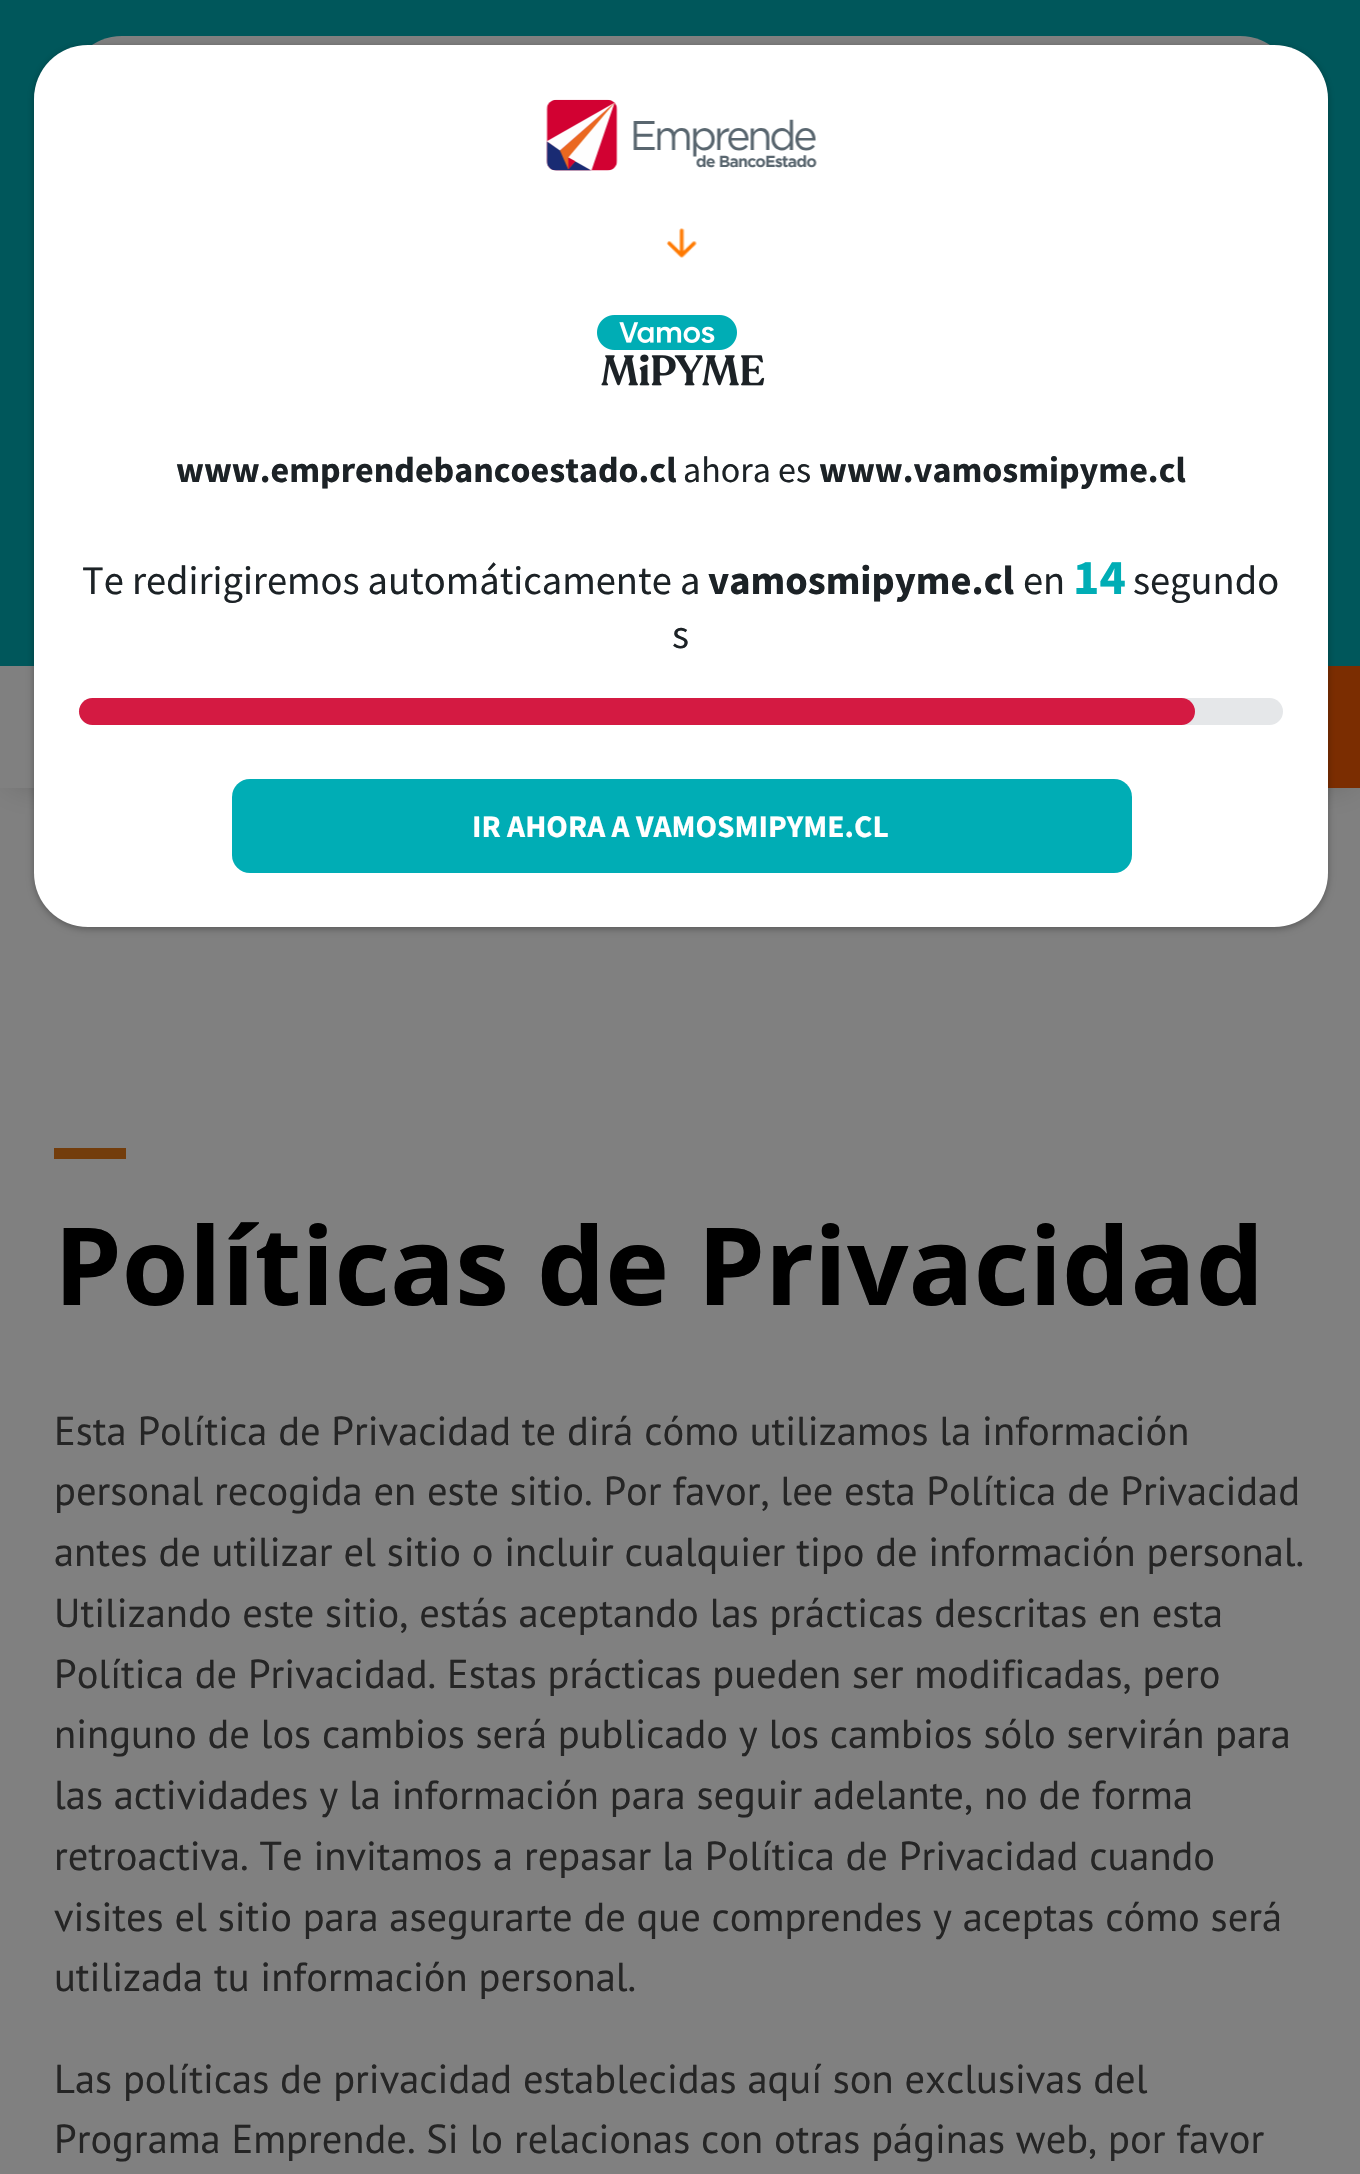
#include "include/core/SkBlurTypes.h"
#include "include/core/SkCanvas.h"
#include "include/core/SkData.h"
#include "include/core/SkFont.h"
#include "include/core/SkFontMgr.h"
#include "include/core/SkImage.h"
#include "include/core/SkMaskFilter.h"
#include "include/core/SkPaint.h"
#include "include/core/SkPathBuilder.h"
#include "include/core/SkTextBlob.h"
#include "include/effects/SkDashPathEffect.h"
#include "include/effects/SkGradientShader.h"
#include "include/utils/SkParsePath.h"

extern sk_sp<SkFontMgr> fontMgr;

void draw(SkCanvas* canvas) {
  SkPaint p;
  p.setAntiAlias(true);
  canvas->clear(SkColorSetRGB(128, 128, 128));
  canvas->save();
  canvas->clipPath(SkPathBuilder(SkPathFillType::kEvenOdd).moveTo(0, 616).lineTo(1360, 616).lineTo(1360, 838).lineTo(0, 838).close().moveTo(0, 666).lineTo(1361, 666).lineTo(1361, 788).lineTo(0, 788).close().detach(), true);
  p.setColor(SkColorSetRGB(68, 68, 68));
  p.setMaskFilter(SkMaskFilter::MakeBlur(kNormal_SkBlurStyle, 21.5f));
  canvas->drawRect(SkRect::MakeLTRB(16, 682, 1346, 772), p);
  p.setMaskFilter(nullptr);
  canvas->restore();
  p.setColor(SkColorSetRGB(0, 87, 91));
  canvas->drawRect(SkRect::MakeLTRB(0, 0, 1360, 666), p);
  p.setColor(SkColorSetRGB(128, 128, 128));
  canvas->drawRoundRect(SkRect::MakeLTRB(68, 36, 1294, 630), 54, 54, p);
  p.setColor(SkColorSetRGB(123, 45, 1));
  canvas->drawRect(SkRect::MakeLTRB(1328, 666, 1360, 788), p);
  p.setColor(SkColorSetARGB(77, 0, 0, 0));
  p.setMaskFilter(SkMaskFilter::MakeBlur(kNormal_SkBlurStyle, 3.5f));
  canvas->drawRoundRect(SkRect::MakeLTRB(34, 47, 1328, 929), 54, 54, p);
  p.setMaskFilter(nullptr);
  p.setColor(SK_ColorWHITE);
  canvas->drawRoundRect(SkRect::MakeLTRB(34, 45, 1328, 927), 54, 54, p);
  canvas->drawImageRect(SkImages::DeferredFromEncodedData(SkData::MakeFromFileName("images/1.png")), SkRect::MakeLTRB(546, 99, 817, 171), SkSamplingOptions());
  canvas->drawImageRect(SkImages::DeferredFromEncodedData(SkData::MakeFromFileName("images/2.png")), SkRect::MakeLTRB(666, 228, 697, 258), SkSamplingOptions());
  canvas->drawImageRect(SkImages::DeferredFromEncodedData(SkData::MakeFromFileName("images/3.png")), SkRect::MakeLTRB(597, 315, 765, 386), SkSamplingOptions());
  p.setColor(SkColorSetRGB(229, 231, 233));
  canvas->drawRoundRect(SkRect::MakeLTRB(79, 698, 1283, 725), 13.5f, 13.5f, p);
  p.setColor(SkColorSetRGB(212, 26, 66));
  canvas->drawRoundRect(SkRect::MakeLTRB(79, 698, 1195, 725), 13.5f, 13.5f, p);
  p.setColor(SkColorSetRGB(0, 173, 181));
  canvas->drawRoundRect(SkRect::MakeLTRB(232, 779, 1132, 873), 18, 18, p);
  p.setColor(SkColorSetRGB(115, 61, 12));
  canvas->drawRect(SkRect::MakeLTRB(54, 1148, 126, 1159), p);
  SkFont font1(fontMgr->matchFamilyStyle("Source Sans Pro", SkFontStyle::Bold()), 36);
  font1.setSubpixel(true);
  p.setColor(SkColorSetRGB(28, 34, 38));
  canvas->drawString("www.emprendebancoestado.cl", 176, 482, font1, p);
  SkFont font2(fontMgr->matchFamilyStyle("Source Sans Pro", SkFontStyle::Normal()), 36);
  font2.setSubpixel(true);
  canvas->drawString("ahora es", 683, 482, font2, p);
  canvas->drawString("www.vamosmipyme.cl", 819, 482, font1, p);
  SkFont font3(fontMgr->matchFamilyStyle("Source Sans Pro", SkFontStyle::Normal()), 40.5f);
  font3.setSubpixel(true);
  canvas->drawString("Te redirigiremos automáticamente a", 82, 594, font3, p);
  SkFont font4(fontMgr->matchFamilyStyle("Source Sans Pro", SkFontStyle::Bold()), 40.5f);
  font4.setSubpixel(true);
  canvas->drawString("vamosmipyme.cl", 708, 594, font4, p);
  canvas->drawString("en", 1023, 594, font3, p);
  SkFont font5(fontMgr->matchFamilyStyle("Source Sans Pro", SkFontStyle::Bold()), 50);
  font5.setSubpixel(true);
  p.setColor(SkColorSetRGB(0, 173, 181));
  canvas->drawString("14", 1073, 594, font5, p);
  p.setColor(SkColorSetRGB(28, 34, 38));
  canvas->drawString("segundo", 1133, 594, font3, p);
  canvas->drawString("s", 672, 648, font3, p);
  SkFont font6(fontMgr->matchFamilyStyle("Source Sans Pro", SkFontStyle::Bold()), 31.5f);
  font6.setSubpixel(true);
  p.setColor(SK_ColorWHITE);
  canvas->drawString("IR AHORA A VAMOSMIPYME.CL", 472, 837, font6, p);
  SkFont font7(fontMgr->matchFamilyStyle("Open Sans", SkFontStyle::Bold()), 108);
  font7.setSubpixel(true);
  p.setColor(SK_ColorBLACK);
  canvas->drawString("Políticas de Privacidad", 54, 1305, font7, p);
  SkFont font8(fontMgr->matchFamilyStyle("PT Sans", SkFontStyle::Normal()), 40.5f);
  font8.setSubpixel(true);
  p.setColor(SkColorSetRGB(37, 37, 37));
  canvas->drawString("Esta Política de Privacidad te dirá cómo utilizamos la información", 54, 1445, font8, p);
  canvas->drawString("personal recogida en este sitio. Por favor, lee esta Política de Privacidad", 54, 1505, font8, p);
  canvas->drawString("antes de utilizar el sitio o incluir cualquier tipo de información personal.", 54, 1566, font8, p);
  canvas->drawString("Utilizando este sitio, estás aceptando las prácticas descritas en esta", 54, 1627, font8, p);
  canvas->drawString("Política de Privacidad. Estas prácticas pueden ser modificadas, pero", 54, 1688, font8, p);
  canvas->drawString("ninguno de los cambios será publicado y los cambios sólo servirán para", 54, 1748, font8, p);
  canvas->drawString("las actividades y la información para seguir adelante, no de forma", 54, 1809, font8, p);
  canvas->drawString("retroactiva. Te invitamos a repasar la Política de Privacidad cuando", 54, 1870, font8, p);
  canvas->drawString("visites el sitio para asegurarte de que comprendes y aceptas cómo será", 54, 1931, font8, p);
  canvas->drawString("utilizada tu información personal.", 54, 1991, font8, p);
  canvas->drawString("Las políticas de privacidad establecidas aquí son exclusivas del", 54, 2093, font8, p);
  canvas->drawString("Programa Emprende. Si lo relacionas con otras páginas web, por favor", 54, 2153, font8, p);
}
